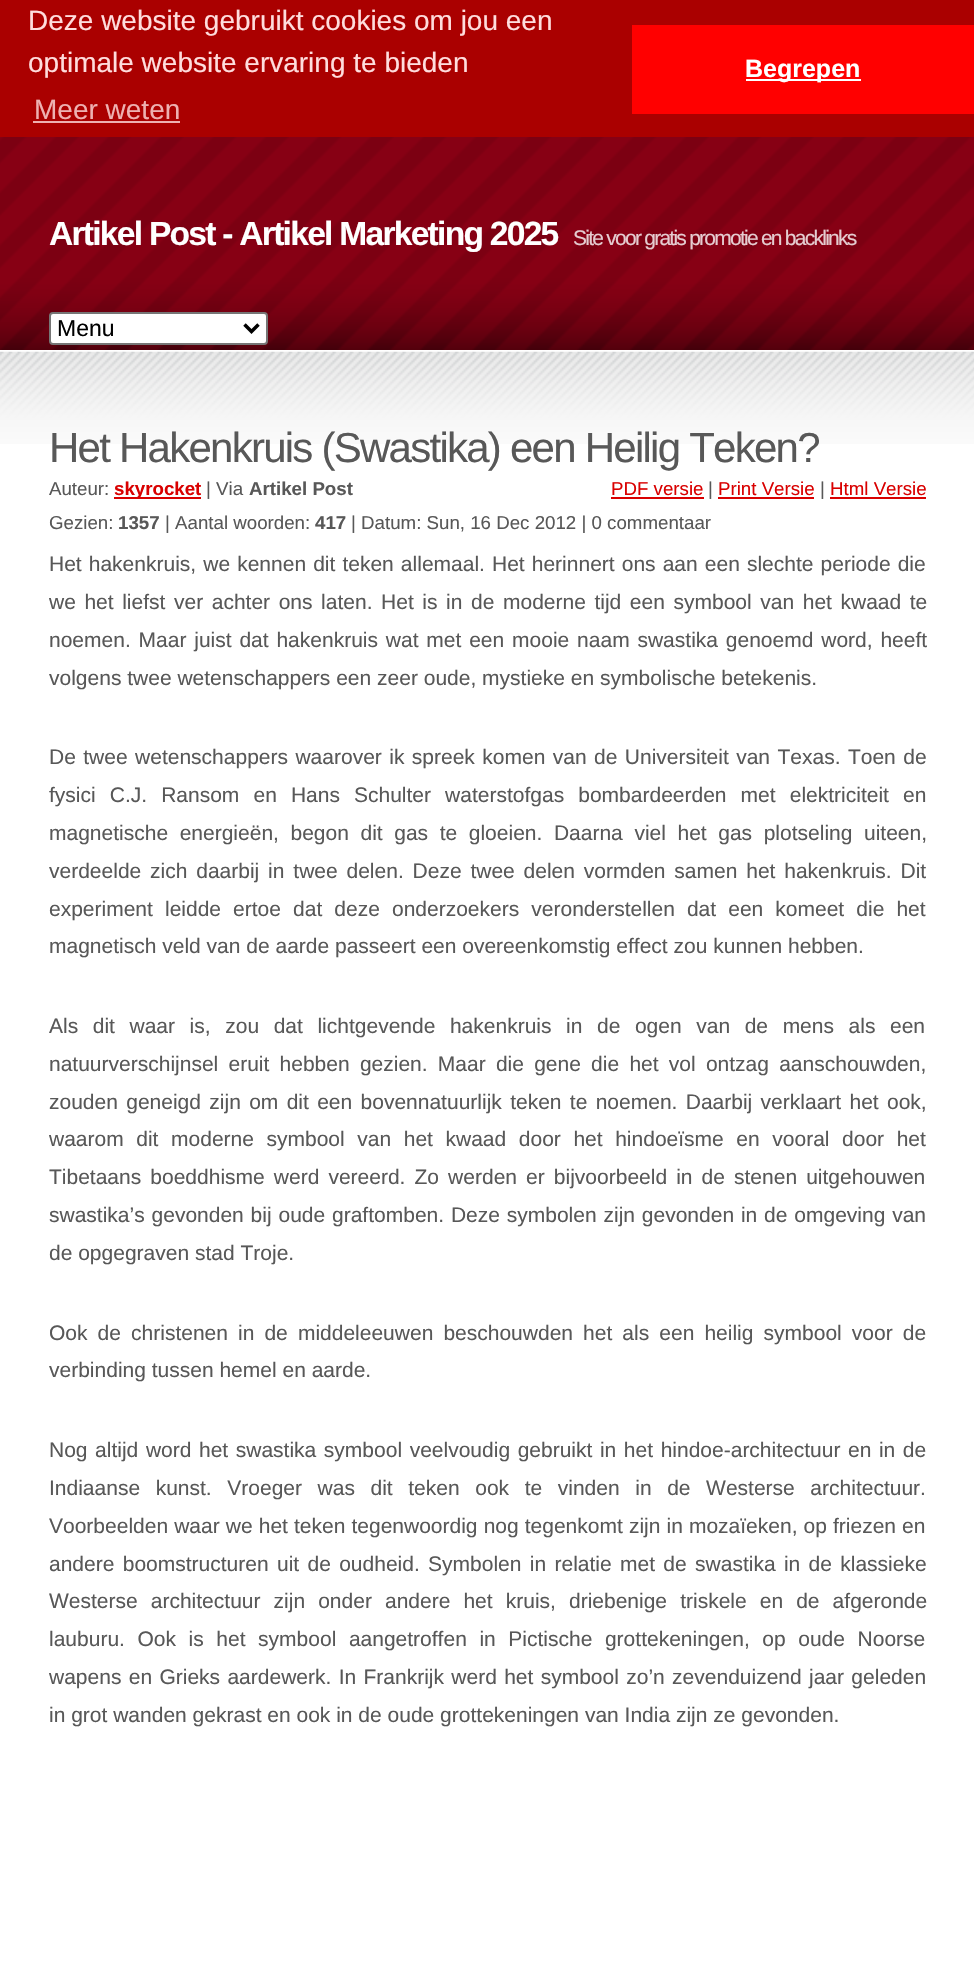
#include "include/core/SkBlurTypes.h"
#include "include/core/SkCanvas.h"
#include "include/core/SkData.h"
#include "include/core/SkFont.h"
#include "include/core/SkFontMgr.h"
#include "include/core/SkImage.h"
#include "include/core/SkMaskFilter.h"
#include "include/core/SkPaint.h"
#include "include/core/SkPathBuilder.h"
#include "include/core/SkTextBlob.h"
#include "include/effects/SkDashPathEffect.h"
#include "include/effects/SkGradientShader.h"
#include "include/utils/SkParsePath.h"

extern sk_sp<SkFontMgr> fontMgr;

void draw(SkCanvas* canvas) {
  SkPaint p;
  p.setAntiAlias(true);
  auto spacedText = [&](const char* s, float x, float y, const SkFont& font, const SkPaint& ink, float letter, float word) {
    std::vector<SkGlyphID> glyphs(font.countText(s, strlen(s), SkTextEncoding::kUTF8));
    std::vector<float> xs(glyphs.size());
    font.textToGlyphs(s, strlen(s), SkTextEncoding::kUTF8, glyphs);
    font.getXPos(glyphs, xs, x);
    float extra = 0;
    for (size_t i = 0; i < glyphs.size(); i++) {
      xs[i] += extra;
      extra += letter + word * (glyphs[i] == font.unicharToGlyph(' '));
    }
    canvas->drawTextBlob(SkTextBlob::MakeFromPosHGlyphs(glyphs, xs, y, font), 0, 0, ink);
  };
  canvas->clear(SK_ColorWHITE);
  p.setColor(SkColorSetRGB(170, 0, 0));
  canvas->drawRect(SkRect::MakeLTRB(0, 0, 974, 137), p);
  p.setColor(SkColorSetRGB(238, 177, 177));
  canvas->drawRect(SkRect::MakeLTRB(33, 121, 180, 123), p);
  p.setColor(SkColorSetRGB(255, 0, 0));
  canvas->drawRect(SkRect::MakeLTRB(632, 25, 974, 114), p);
  p.setColor(SK_ColorWHITE);
  canvas->drawRect(SkRect::MakeLTRB(746, 79, 861, 81), p);
  canvas->drawImageRect(SkImages::DeferredFromEncodedData(SkData::MakeFromFileName("images/1.png")), SkRect::MakeLTRB(0, 137, 974, 350), SkSamplingOptions());
  canvas->drawRoundRect(SkRect::MakeLTRB(50, 313, 267, 344), 3, 3, p);
  p.setStyle(SkPaint::kStroke_Style);
  p.setStrokeWidth(2);
  p.setColor(SkColorSetRGB(118, 118, 118));
  canvas->drawRoundRect(SkRect::MakeLTRB(50, 313, 267, 344), 3, 3, p);
  p.setStrokeWidth(3.5f);
  p.setColor(SK_ColorBLACK);
  canvas->drawPath(SkPathBuilder().moveTo(244.5f, 324.5f).lineTo(251.5f, 331.5f).lineTo(258.5f, 324.5f).detach(), p);
  canvas->drawImageRect(SkImages::DeferredFromEncodedData(SkData::MakeFromFileName("images/2.png")), SkRect::MakeLTRB(0, 351, 974, 444), SkSamplingOptions());
  p.setStyle(SkPaint::kFill_Style);
  p.setColor(SkColorSetRGB(217, 0, 0));
  canvas->drawRect(SkRect::MakeLTRB(114, 497, 201, 499), p);
  canvas->drawRect(SkRect::MakeLTRB(611, 497, 704, 499), p);
  canvas->drawRect(SkRect::MakeLTRB(718, 497, 814, 499), p);
  canvas->drawRect(SkRect::MakeLTRB(830, 497, 926, 499), p);
  SkFont font1(fontMgr->matchFamilyStyle("Liberation Sans", SkFontStyle::Normal()), 28);
  font1.setSubpixel(true);
  p.setColor(SkColorSetRGB(255, 221, 221));
  canvas->drawString("Deze website gebruikt cookies om jou een", 28, 30, font1, p);
  canvas->drawString("optimale website ervaring te bieden", 28, 72, font1, p);
  p.setColor(SkColorSetRGB(238, 177, 177));
  canvas->drawString("Meer weten", 34, 119, font1, p);
  SkFont font2(fontMgr->matchFamilyStyle("Liberation Sans", SkFontStyle::Bold()), 25);
  font2.setSubpixel(true);
  p.setColor(SK_ColorWHITE);
  canvas->drawString("Begrepen", 745, 77, font2, p);
  SkFont font3(fontMgr->matchFamilyStyle("Liberation Sans", SkFontStyle::Bold()), 33.6f);
  font3.setSubpixel(true);
  spacedText("Artikel Post - Artikel Marketing 2025", 49, 245, font3, p, -1.75f, 0);
  SkFont font4(fontMgr->matchFamilyStyle("Liberation Sans", SkFontStyle::Normal()), 21);
  font4.setSubpixel(true);
  p.setColor(SkColorSetRGB(229, 204, 208));
  spacedText("Site voor gratis promotie en backlinks", 573, 245, font4, p, -1.75f, 0);
  SkFont font5(fontMgr->matchFamilyStyle("Liberation Sans", SkFontStyle::Normal()), 23);
  font5.setSubpixel(true);
  p.setColor(SK_ColorBLACK);
  canvas->drawString("Menu", 57, 336, font5, p);
  SkFont font6(fontMgr->matchFamilyStyle("Liberation Sans", SkFontStyle::Normal()), 42);
  font6.setSubpixel(true);
  p.setColor(SkColorSetRGB(88, 88, 88));
  spacedText("Het Hakenkruis (Swastika) een Heilig Teken?", 49, 462, font6, p, -1.75f, 0);
  SkFont font7(fontMgr->matchFamilyStyle("Liberation Sans", SkFontStyle::Normal()), 18.7f);
  font7.setSubpixel(true);
  canvas->drawString("Auteur:", 49, 495, font7, p);
  SkFont font8(fontMgr->matchFamilyStyle("Liberation Sans", SkFontStyle::Bold()), 18.7f);
  font8.setSubpixel(true);
  p.setColor(SkColorSetRGB(217, 0, 0));
  canvas->drawString("skyrocket", 114, 495, font8, p);
  p.setColor(SkColorSetRGB(88, 88, 88));
  canvas->drawString("| Via", 206, 495, font7, p);
  canvas->drawString("Artikel Post", 249, 495, font8, p);
  p.setColor(SkColorSetRGB(217, 0, 0));
  canvas->drawString("PDF versie", 611, 495, font7, p);
  p.setColor(SkColorSetRGB(88, 88, 88));
  canvas->drawString("|", 708, 495, font7, p);
  p.setColor(SkColorSetRGB(217, 0, 0));
  canvas->drawString("Print Versie", 718, 495, font7, p);
  p.setColor(SkColorSetRGB(88, 88, 88));
  canvas->drawString("|", 820, 495, font7, p);
  p.setColor(SkColorSetRGB(217, 0, 0));
  canvas->drawString("Html Versie", 830, 495, font7, p);
  p.setColor(SkColorSetRGB(88, 88, 88));
  canvas->drawString("Gezien:", 49, 529, font7, p);
  canvas->drawString("1357", 118, 529, font8, p);
  canvas->drawString("| Aantal woorden:", 165, 529, font7, p);
  canvas->drawString("417", 315, 529, font8, p);
  canvas->drawString("| Datum: Sun, 16 Dec 2012 | 0 commentaar", 351, 529, font7, p);
  spacedText("Het hakenkruis, we kennen dit teken allemaal. Het herinnert ons aan een slechte periode die", 49, 571, font4, p, 0, 1.25f);
  spacedText("we het liefst ver achter ons laten. Het is in de moderne tijd een symbool van het kwaad te", 49, 609, font4, p, 0, 2.75f);
  spacedText("noemen. Maar juist dat hakenkruis wat met een mooie naam swastika genoemd word, heeft", 49, 647, font4, p, 0, 2);
  canvas->drawString("volgens twee wetenschappers een zeer oude, mystieke en symbolische betekenis.", 49, 685, font4, p);
  spacedText("De twee wetenschappers waarover ik spreek komen van de Universiteit van Texas. Toen de", 49, 764, font4, p, 0, 1.6f);
  spacedText("fysici C.J. Ransom en Hans Schulter waterstofgas bombardeerden met elektriciteit en", 49, 802, font4, p, 0, 8.25f);
  spacedText("magnetische energieën, begon dit gas te gloeien. Daarna viel het gas plotseling uiteen,", 49, 840, font4, p, 0, 5.75f);
  spacedText("verdeelde zich daarbij in twee delen. Deze twee delen vormden samen het hakenkruis. Dit", 49, 878, font4, p, 0, 3);
  spacedText("experiment leidde ertoe dat deze onderzoekers veronderstellen dat een komeet die het", 49, 916, font4, p, 0, 6.25f);
  canvas->drawString("magnetisch veld van de aarde passeert een overeenkomstig effect zou kunnen hebben.", 49, 953, font4, p);
  spacedText("Als dit waar is, zou dat lichtgevende hakenkruis in de ogen van de mens als een", 49, 1033, font4, p, 0, 8.75f);
  spacedText("natuurverschijnsel eruit hebben gezien. Maar die gene die het vol ontzag aanschouwden,", 49, 1071, font4, p, 0, 4.4f);
  spacedText("zouden geneigd zijn om dit een bovennatuurlijk teken te noemen. Daarbij verklaart het ook,", 49, 1109, font4, p, 0, 2.5f);
  spacedText("waarom dit moderne symbool van het kwaad door het hindoeïsme en vooral door het", 49, 1146, font4, p, 0, 6.75f);
  spacedText("Tibetaans boeddhisme werd vereerd. Zo werden er bijvoorbeeld in de stenen uitgehouwen", 49, 1184, font4, p, 0, 3.25f);
  spacedText("swastika’s gevonden bij oude graftomben. Deze symbolen zijn gevonden in de omgeving van", 49, 1222, font4, p, 0, 1);
  canvas->drawString("de opgegraven stad Troje.", 49, 1260, font4, p);
  spacedText("Ook de christenen in de middeleeuwen beschouwden het als een heilig symbool voor de", 49, 1340, font4, p, 0, 4.25f);
  canvas->drawString("verbinding tussen hemel en aarde.", 49, 1377, font4, p);
  spacedText("Nog altijd word het swastika symbool veelvoudig gebruikt in het hindoe-architectuur en in de", 49, 1457, font4, p, 0, 1.75f);
  spacedText("Indiaanse kunst. Vroeger was dit teken ook te vinden in de Westerse architectuur.", 49, 1495, font4, p, 0, 9.75f);
  spacedText("Voorbeelden waar we het teken tegenwoordig nog tegenkomt zijn in mozaïeken, op friezen en", 49, 1533, font4, p, 0, 0.25f);
  spacedText("andere boomstructuren uit de oudheid. Symbolen in relatie met de swastika in de klassieke", 49, 1571, font4, p, 0, 2.5f);
  spacedText("Westerse architectuur zijn onder andere het kruis, driebenige triskele en de afgeronde", 49, 1608, font4, p, 0, 7.25f);
  spacedText("lauburu. Ook is het symbool aangetroffen in Pictische grottekeningen, op oude Noorse", 49, 1646, font4, p, 0, 6.75f);
  spacedText("wapens en Grieks aardewerk. In Frankrijk werd het symbool zo’n zevenduizend jaar geleden", 49, 1684, font4, p, 0, 1.5f);
  canvas->drawString("in grot wanden gekrast en ook in de oude grottekeningen van India zijn ze gevonden.", 49, 1722, font4, p);
}
